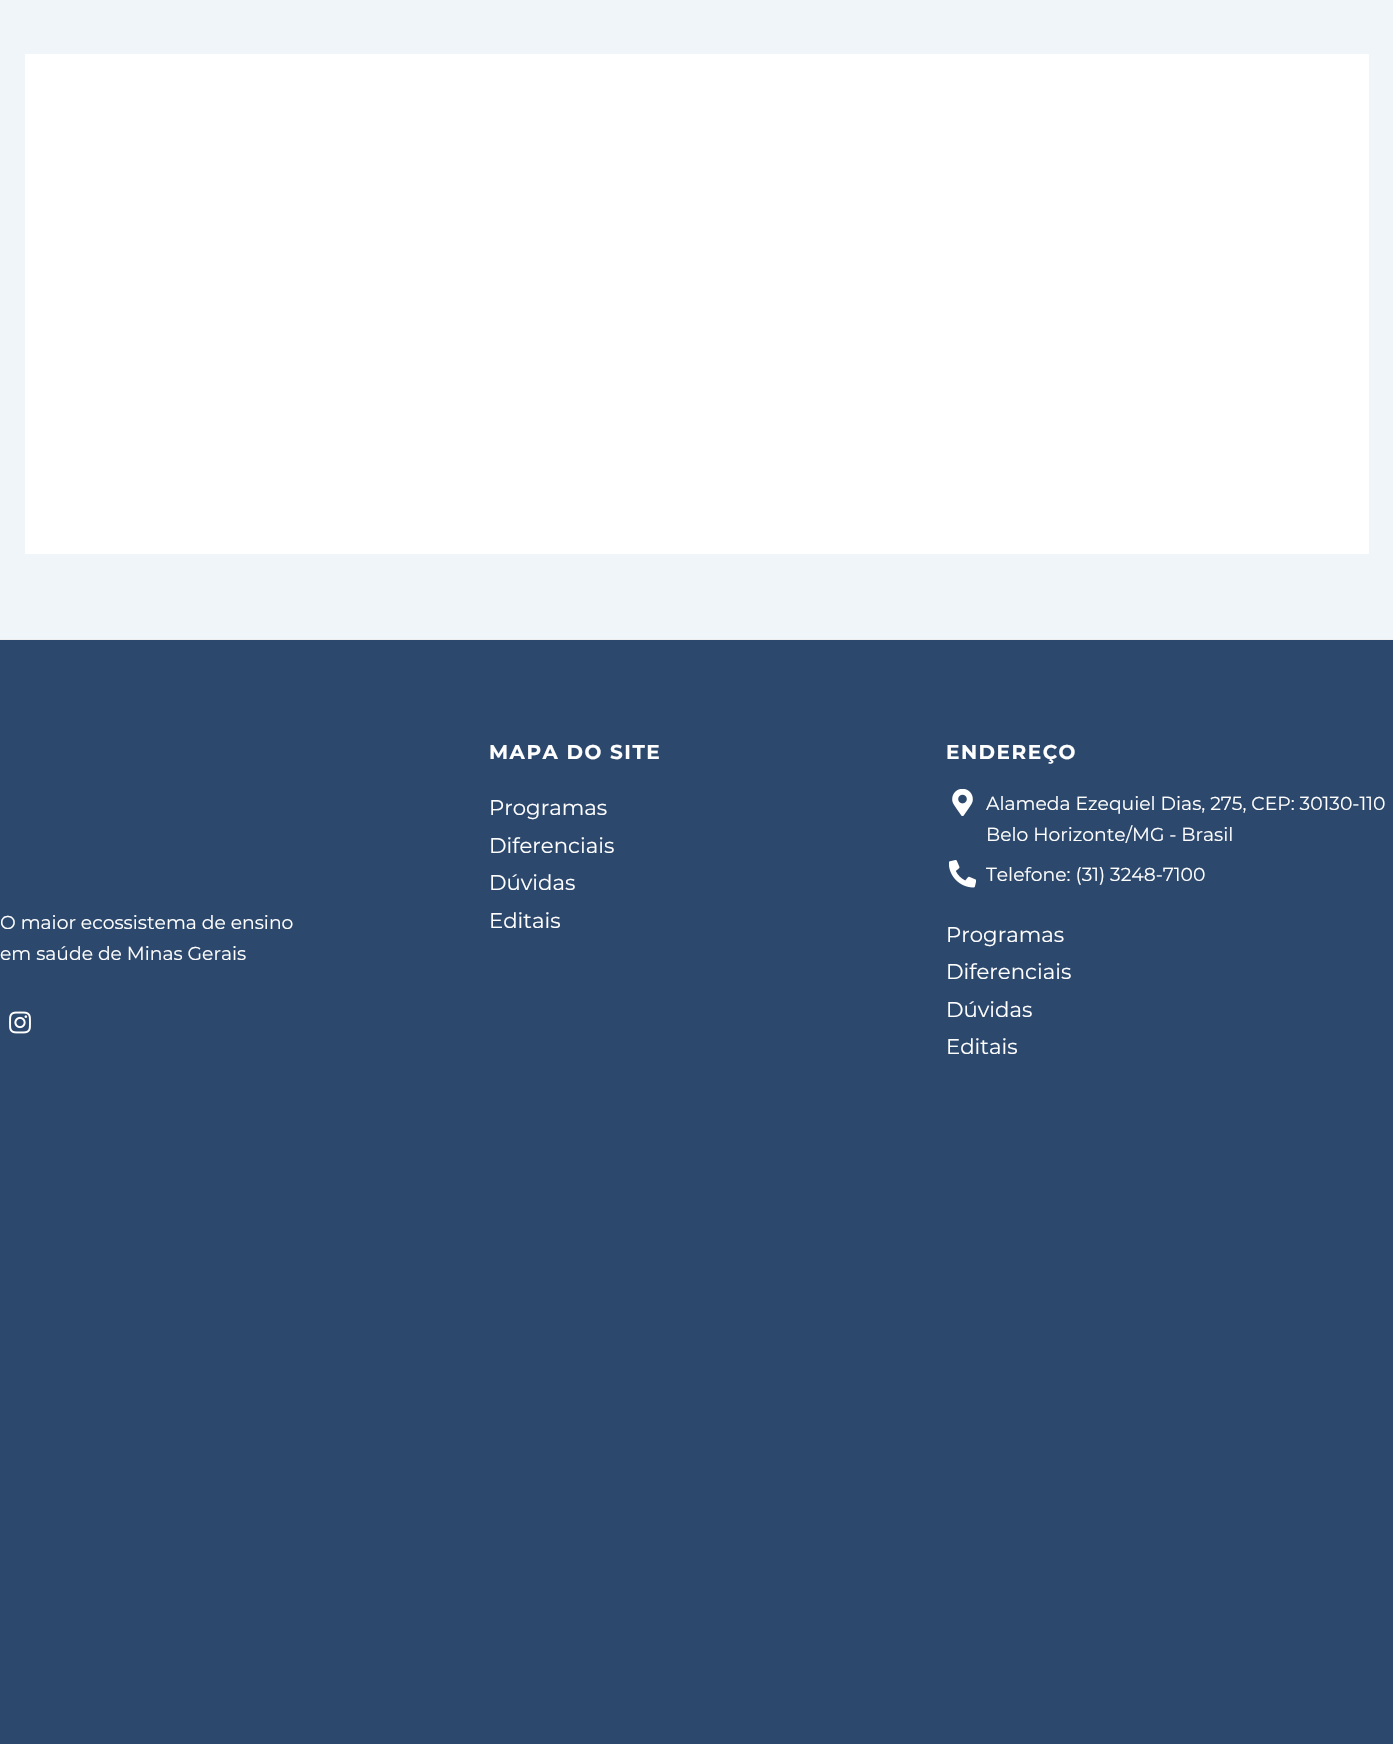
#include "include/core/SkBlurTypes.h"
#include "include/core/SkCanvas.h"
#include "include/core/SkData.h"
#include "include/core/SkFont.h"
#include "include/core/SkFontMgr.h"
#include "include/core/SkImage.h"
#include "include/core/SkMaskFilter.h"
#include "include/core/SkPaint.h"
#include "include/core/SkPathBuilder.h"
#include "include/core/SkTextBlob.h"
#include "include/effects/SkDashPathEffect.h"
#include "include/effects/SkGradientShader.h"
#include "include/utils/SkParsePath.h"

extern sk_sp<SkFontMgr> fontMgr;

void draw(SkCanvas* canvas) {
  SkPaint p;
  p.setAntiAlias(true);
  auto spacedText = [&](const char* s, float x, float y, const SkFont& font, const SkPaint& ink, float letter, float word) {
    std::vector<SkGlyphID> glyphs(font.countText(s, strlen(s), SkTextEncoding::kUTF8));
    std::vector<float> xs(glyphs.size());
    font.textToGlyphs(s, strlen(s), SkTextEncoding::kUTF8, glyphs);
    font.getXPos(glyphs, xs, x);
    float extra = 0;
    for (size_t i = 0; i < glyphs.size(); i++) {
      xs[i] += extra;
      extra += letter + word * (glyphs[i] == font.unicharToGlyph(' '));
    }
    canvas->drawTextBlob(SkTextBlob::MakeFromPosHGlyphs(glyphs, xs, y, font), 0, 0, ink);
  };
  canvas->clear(SkColorSetRGB(240, 245, 250));
  p.setColor(SK_ColorWHITE);
  canvas->drawRect(SkRect::MakeLTRB(25, 54, 1369, 554), p);
  p.setColor(SkColorSetRGB(45, 72, 109));
  canvas->drawRect(SkRect::MakeLTRB(0, 640, 1393, 1744), p);
  p.setColor(SkColorSetRGB(237, 237, 237));
  canvas->drawRect(SkRect::MakeLTRB(0, 639, 1393, 640), p);
  canvas->drawImageRect(SkImages::DeferredFromEncodedData(SkData::MakeFromFileName("images/1.png")), SkRect::MakeLTRB(9, 1011, 31, 1034), SkSamplingOptions());
  canvas->drawImageRect(SkImages::DeferredFromEncodedData(SkData::MakeFromFileName("images/2.png")), SkRect::MakeLTRB(952, 789, 973, 816), SkSamplingOptions());
  canvas->drawImageRect(SkImages::DeferredFromEncodedData(SkData::MakeFromFileName("images/3.png")), SkRect::MakeLTRB(949, 860, 976, 888), SkSamplingOptions());
  SkFont font1(fontMgr->matchFamilyStyle("Montserrat", SkFontStyle::Normal()), 18.75f);
  font1.setSubpixel(true);
  p.setColor(SK_ColorWHITE);
  canvas->drawString("O maior ecossistema de ensino", 0, 929, font1, p);
  canvas->drawString("em saúde de Minas Gerais", 0, 960, font1, p);
  SkFont font2(fontMgr->matchFamilyStyle("Montserrat", SkFontStyle::Bold()), 20);
  font2.setSubpixel(true);
  spacedText("MAPA DO SITE", 489, 759, font2, p, 1.5f, 0);
  SkFont font3(fontMgr->matchFamilyStyle("Montserrat", SkFontStyle::Normal()), 21.25f);
  font3.setSubpixel(true);
  canvas->drawString("Programas", 489, 815, font3, p);
  canvas->drawString("Diferenciais", 489, 853, font3, p);
  canvas->drawString("Dúvidas", 489, 890, font3, p);
  canvas->drawString("Editais", 489, 928, font3, p);
  spacedText("ENDEREÇO", 946, 759, font2, p, 1.5f, 0);
  canvas->drawString("Alameda Ezequiel Dias, 275, CEP: 30130-110", 986, 810, font1, p);
  canvas->drawString("Belo Horizonte/MG - Brasil", 986, 841, font1, p);
  canvas->drawString("Telefone: (31) 3248-7100", 986, 881, font1, p);
  canvas->drawString("Programas", 946, 942, font3, p);
  canvas->drawString("Diferenciais", 946, 979, font3, p);
  canvas->drawString("Dúvidas", 946, 1017, font3, p);
  canvas->drawString("Editais", 946, 1054, font3, p);
}
